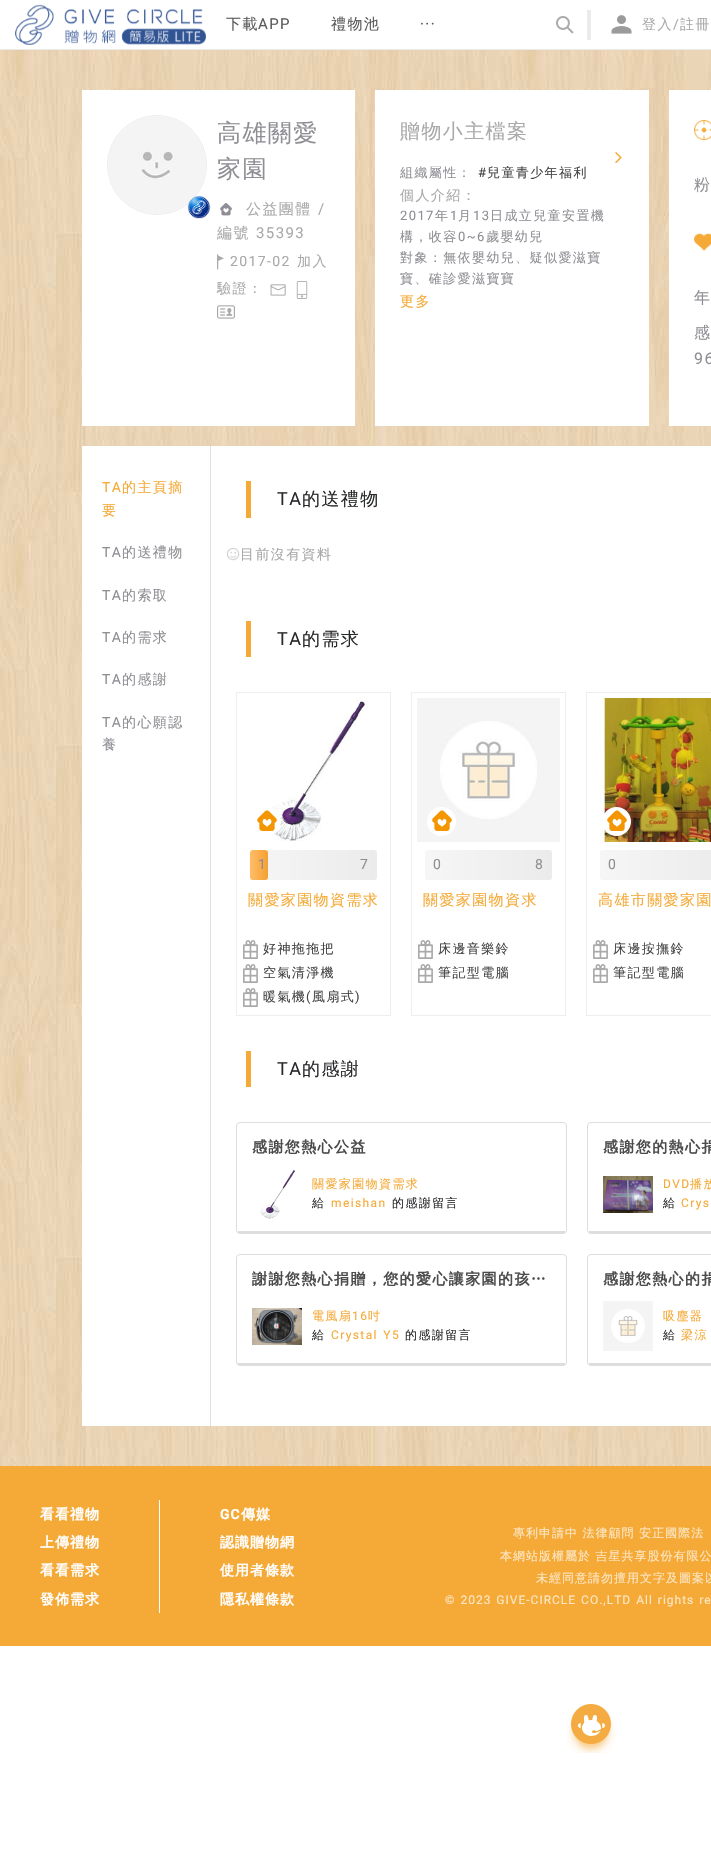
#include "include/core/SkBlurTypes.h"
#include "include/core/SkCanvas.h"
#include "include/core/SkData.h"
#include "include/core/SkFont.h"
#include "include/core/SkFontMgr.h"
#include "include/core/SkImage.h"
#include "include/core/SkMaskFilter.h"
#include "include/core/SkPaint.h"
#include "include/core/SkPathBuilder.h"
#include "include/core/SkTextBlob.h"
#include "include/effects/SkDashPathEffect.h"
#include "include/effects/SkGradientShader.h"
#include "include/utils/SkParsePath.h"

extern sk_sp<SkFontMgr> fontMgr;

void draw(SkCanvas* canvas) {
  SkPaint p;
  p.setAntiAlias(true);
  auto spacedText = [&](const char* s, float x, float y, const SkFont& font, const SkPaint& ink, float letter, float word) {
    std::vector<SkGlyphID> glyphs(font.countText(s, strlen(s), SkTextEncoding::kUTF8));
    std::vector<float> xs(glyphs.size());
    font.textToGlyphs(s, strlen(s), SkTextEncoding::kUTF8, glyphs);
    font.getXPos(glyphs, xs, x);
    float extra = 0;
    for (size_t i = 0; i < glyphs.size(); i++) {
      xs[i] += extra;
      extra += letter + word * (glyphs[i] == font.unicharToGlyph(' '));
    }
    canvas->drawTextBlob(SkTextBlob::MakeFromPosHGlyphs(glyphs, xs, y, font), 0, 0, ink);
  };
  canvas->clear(SK_ColorWHITE);
  p.setColor(SkColorSetRGB(235, 235, 235));
  canvas->drawRect(SkRect::MakeLTRB(0, 49, 711, 50), p);
  canvas->drawImageRect(SkImages::DeferredFromEncodedData(SkData::MakeFromFileName("images/1.png")), SkRect::MakeLTRB(15, 4, 206, 45), SkSamplingOptions());
  canvas->drawImageRect(SkImages::DeferredFromEncodedData(SkData::MakeFromFileName("images/2.png")), SkRect::MakeLTRB(556, 16, 574, 34), SkSamplingOptions());
  canvas->drawRect(SkRect::MakeLTRB(587, 10, 591, 40), p);
  canvas->drawImageRect(SkImages::DeferredFromEncodedData(SkData::MakeFromFileName("images/3.png")), SkRect::MakeLTRB(611, 15, 632, 34), SkSamplingOptions());
  canvas->drawImageRect(SkImages::DeferredFromEncodedData(SkData::MakeFromFileName("images/4.png")), SkRect::MakeLTRB(0, 50, 711, 1466), SkSamplingOptions());
  p.setColor(SK_ColorWHITE);
  canvas->drawRect(SkRect::MakeLTRB(82, 90, 355, 426), p);
  p.setStyle(SkPaint::kStroke_Style);
  p.setStrokeWidth(1);
  p.setColor(SkColorSetRGB(235, 235, 235));
  canvas->drawCircle(157, 165, 49.5f, p);
  canvas->drawImageRect(SkImages::DeferredFromEncodedData(SkData::MakeFromFileName("images/5.png")), SkRect::MakeLTRB(108, 116, 206, 214), SkSamplingOptions());
  canvas->drawImageRect(SkImages::DeferredFromEncodedData(SkData::MakeFromFileName("images/6.png")), SkRect::MakeLTRB(187, 195, 211, 219), SkSamplingOptions());
  canvas->drawImageRect(SkImages::DeferredFromEncodedData(SkData::MakeFromFileName("images/7.png")), SkRect::MakeLTRB(220, 203, 232, 216), SkSamplingOptions());
  canvas->drawImageRect(SkImages::DeferredFromEncodedData(SkData::MakeFromFileName("images/8.png")), SkRect::MakeLTRB(217, 254, 224, 270), SkSamplingOptions());
  canvas->drawImageRect(SkImages::DeferredFromEncodedData(SkData::MakeFromFileName("images/9.png")), SkRect::MakeLTRB(270, 284, 286, 296), SkSamplingOptions());
  canvas->drawImageRect(SkImages::DeferredFromEncodedData(SkData::MakeFromFileName("images/10.png")), SkRect::MakeLTRB(296, 281, 308, 299), SkSamplingOptions());
  canvas->drawImageRect(SkImages::DeferredFromEncodedData(SkData::MakeFromFileName("images/11.png")), SkRect::MakeLTRB(217, 305, 235, 319), SkSamplingOptions());
  p.setStyle(SkPaint::kFill_Style);
  p.setColor(SK_ColorWHITE);
  canvas->drawRect(SkRect::MakeLTRB(375, 90, 649, 426), p);
  canvas->drawImageRect(SkImages::DeferredFromEncodedData(SkData::MakeFromFileName("images/12.png")), SkRect::MakeLTRB(615, 152, 622, 164), SkSamplingOptions());
  canvas->drawRect(SkRect::MakeLTRB(669, 90, 711, 426), p);
  canvas->drawImageRect(SkImages::DeferredFromEncodedData(SkData::MakeFromFileName("images/13.png")), SkRect::MakeLTRB(694, 120, 711, 140), SkSamplingOptions());
  canvas->drawImageRect(SkImages::DeferredFromEncodedData(SkData::MakeFromFileName("images/14.png")), SkRect::MakeLTRB(694, 233, 711, 251), SkSamplingOptions());
  canvas->drawRect(SkRect::MakeLTRB(82, 446, 711, 1426), p);
  p.setColor(SkColorSetRGB(224, 224, 224));
  canvas->drawRect(SkRect::MakeLTRB(210, 446, 211, 1426), p);
  p.setColor(SkColorSetRGB(245, 170, 56));
  canvas->drawRect(SkRect::MakeLTRB(246, 481, 251, 518), p);
  canvas->drawImageRect(SkImages::DeferredFromEncodedData(SkData::MakeFromFileName("images/15.png")), SkRect::MakeLTRB(226, 548, 240, 561), SkSamplingOptions());
  canvas->drawRect(SkRect::MakeLTRB(246, 621, 251, 657), p);
  p.setStyle(SkPaint::kStroke_Style);
  p.setColor(SkColorSetRGB(238, 238, 238));
  canvas->drawRect(SkRect::MakeLTRB(236.5f, 692.5f, 390.5f, 1015.5f), p);
  canvas->drawImageRect(SkImages::DeferredFromEncodedData(SkData::MakeFromFileName("images/16.png")), SkRect::MakeLTRB(265, 698, 368, 841), SkSamplingOptions());
  canvas->drawImageRect(SkImages::DeferredFromEncodedData(SkData::MakeFromFileName("images/17.png")), SkRect::MakeLTRB(257, 809, 281, 834), SkSamplingOptions());
  p.setStyle(SkPaint::kFill_Style);
  {
    const SkColor colors[] = {SkColorSetRGB(246, 246, 246), SkColorSetRGB(235, 235, 235)};
    const float stops[] = {0, 1};
    const SkPoint ends[] = {{250, 865}, {377, 865}};
    p.setShader(SkGradientShader::MakeLinear(ends, colors, stops, 2, SkTileMode::kClamp));
    p.setAlpha(255);
  }
  canvas->drawRoundRect(SkRect::MakeLTRB(250, 850, 377, 880), 3, 3, p);
  {
    const SkColor colors[] = {SkColorSetRGB(255, 189, 105), SkColorSetRGB(244, 160, 49)};
    const float stops[] = {0, 1};
    const SkPoint ends[] = {{250, 865}, {268, 865}};
    p.setShader(SkGradientShader::MakeLinear(ends, colors, stops, 2, SkTileMode::kClamp));
    p.setAlpha(255);
  }
  canvas->drawRoundRect(SkRect::MakeLTRB(250, 850, 268, 880), 3, 3, p);
  canvas->drawImageRect(SkImages::DeferredFromEncodedData(SkData::MakeFromFileName("images/18.png")), SkRect::MakeLTRB(243, 940, 258, 959), SkSamplingOptions());
  canvas->drawImageRect(SkImages::DeferredFromEncodedData(SkData::MakeFromFileName("images/18.png")), SkRect::MakeLTRB(243, 964, 258, 983), SkSamplingOptions());
  canvas->drawImageRect(SkImages::DeferredFromEncodedData(SkData::MakeFromFileName("images/18.png")), SkRect::MakeLTRB(243, 988, 258, 1007), SkSamplingOptions());
  p.setStyle(SkPaint::kStroke_Style);
  p.setShader(nullptr);
  p.setColor(SkColorSetRGB(238, 238, 238));
  canvas->drawRect(SkRect::MakeLTRB(411.5f, 692.5f, 565.5f, 1015.5f), p);
  canvas->drawImageRect(SkImages::DeferredFromEncodedData(SkData::MakeFromFileName("images/19.png")), SkRect::MakeLTRB(417, 698, 560, 842), SkSamplingOptions());
  canvas->drawImageRect(SkImages::DeferredFromEncodedData(SkData::MakeFromFileName("images/20.png")), SkRect::MakeLTRB(427, 807, 456, 836), SkSamplingOptions());
  p.setStyle(SkPaint::kFill_Style);
  {
    const SkColor colors[] = {SkColorSetRGB(246, 246, 246), SkColorSetRGB(235, 235, 235)};
    const float stops[] = {0, 1};
    const SkPoint ends[] = {{425, 865}, {552, 865}};
    p.setShader(SkGradientShader::MakeLinear(ends, colors, stops, 2, SkTileMode::kClamp));
    p.setAlpha(255);
  }
  canvas->drawRoundRect(SkRect::MakeLTRB(425, 850, 552, 880), 3, 3, p);
  canvas->drawImageRect(SkImages::DeferredFromEncodedData(SkData::MakeFromFileName("images/18.png")), SkRect::MakeLTRB(418, 940, 433, 959), SkSamplingOptions());
  canvas->drawImageRect(SkImages::DeferredFromEncodedData(SkData::MakeFromFileName("images/18.png")), SkRect::MakeLTRB(418, 964, 433, 983), SkSamplingOptions());
  p.setStyle(SkPaint::kStroke_Style);
  p.setShader(nullptr);
  p.setColor(SkColorSetRGB(238, 238, 238));
  canvas->drawRect(SkRect::MakeLTRB(586.5f, 692.5f, 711.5f, 1015.5f), p);
  canvas->drawImageRect(SkImages::DeferredFromEncodedData(SkData::MakeFromFileName("images/21.png")), SkRect::MakeLTRB(600, 698, 711, 842), SkSamplingOptions());
  canvas->drawImageRect(SkImages::DeferredFromEncodedData(SkData::MakeFromFileName("images/22.png")), SkRect::MakeLTRB(603, 807, 631, 836), SkSamplingOptions());
  p.setStyle(SkPaint::kFill_Style);
  {
    const SkColor colors[] = {SkColorSetRGB(246, 246, 246), SkColorSetRGB(235, 235, 235)};
    const float stops[] = {0, 1};
    const SkPoint ends[] = {{600, 865}, {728, 865}};
    p.setShader(SkGradientShader::MakeLinear(ends, colors, stops, 2, SkTileMode::kClamp));
    p.setAlpha(255);
  }
  canvas->drawRoundRect(SkRect::MakeLTRB(600, 850, 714, 880), 3, 3, p);
  canvas->drawImageRect(SkImages::DeferredFromEncodedData(SkData::MakeFromFileName("images/18.png")), SkRect::MakeLTRB(593, 940, 608, 959), SkSamplingOptions());
  canvas->drawImageRect(SkImages::DeferredFromEncodedData(SkData::MakeFromFileName("images/18.png")), SkRect::MakeLTRB(593, 964, 608, 983), SkSamplingOptions());
  p.setShader(nullptr);
  p.setColor(SkColorSetRGB(245, 170, 56));
  canvas->drawRect(SkRect::MakeLTRB(246, 1051, 251, 1087), p);
  p.setStyle(SkPaint::kStroke_Style);
  p.setColor(SkColorSetRGB(221, 221, 221));
  canvas->drawRoundRect(SkRect::MakeLTRB(236.5f, 1122.5f, 566.5f, 1233.5f), 3.5f, 3.5f, p);
  p.setStyle(SkPaint::kFill_Style);
  canvas->drawRect(SkRect::MakeLTRB(238, 1231, 565, 1233), p);
  canvas->drawImageRect(SkImages::DeferredFromEncodedData(SkData::MakeFromFileName("images/23.png")), SkRect::MakeLTRB(260, 1170, 295, 1219), SkSamplingOptions());
  p.setStyle(SkPaint::kStroke_Style);
  canvas->drawRoundRect(SkRect::MakeLTRB(587.5f, 1122.5f, 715.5f, 1233.5f), 3.5f, 3.5f, p);
  p.setStyle(SkPaint::kFill_Style);
  canvas->drawRect(SkRect::MakeLTRB(589, 1231, 711, 1233), p);
  canvas->drawImageRect(SkImages::DeferredFromEncodedData(SkData::MakeFromFileName("images/24.png")), SkRect::MakeLTRB(603, 1176, 653, 1213), SkSamplingOptions());
  p.setStyle(SkPaint::kStroke_Style);
  canvas->drawRoundRect(SkRect::MakeLTRB(236.5f, 1254.5f, 566.5f, 1365.5f), 3.5f, 3.5f, p);
  p.setStyle(SkPaint::kFill_Style);
  canvas->drawRect(SkRect::MakeLTRB(238, 1363, 565, 1365), p);
  canvas->drawImageRect(SkImages::DeferredFromEncodedData(SkData::MakeFromFileName("images/25.png")), SkRect::MakeLTRB(252, 1308, 302, 1345), SkSamplingOptions());
  p.setStyle(SkPaint::kStroke_Style);
  canvas->drawRoundRect(SkRect::MakeLTRB(587.5f, 1254.5f, 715.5f, 1365.5f), 3.5f, 3.5f, p);
  p.setStyle(SkPaint::kFill_Style);
  canvas->drawRect(SkRect::MakeLTRB(589, 1363, 711, 1365), p);
  canvas->drawImageRect(SkImages::DeferredFromEncodedData(SkData::MakeFromFileName("images/26.png")), SkRect::MakeLTRB(603, 1301, 653, 1351), SkSamplingOptions());
  p.setColor(SkColorSetRGB(245, 170, 56));
  canvas->drawRect(SkRect::MakeLTRB(0, 1466, 711, 1646), p);
  p.setColor(SK_ColorWHITE);
  canvas->drawRect(SkRect::MakeLTRB(159, 1500, 160, 1613), p);
  canvas->drawImageRect(SkImages::DeferredFromEncodedData(SkData::MakeFromFileName("images/27.png")), SkRect::MakeLTRB(566, 1704, 616, 1753), SkSamplingOptions());
  SkFont font1(fontMgr->matchFamilyStyle("WenQuanYi Zen Hei", SkFontStyle(500, SkFontStyle::kNormal_Width, SkFontStyle::kUpright_Slant)), 15);
  font1.setSubpixel(true);
  p.setColor(SkColorSetRGB(89, 89, 89));
  spacedText("下載", 226, 29, font1, p, 1.4f, 0);
  SkFont font2(fontMgr->matchFamilyStyle("Roboto", SkFontStyle::Normal()), 15);
  font2.setSubpixel(true);
  spacedText("APP", 258, 29, font2, p, 1.4f, 0);
  spacedText("禮物池", 331, 29, font1, p, 1.4f, 0);
  spacedText("···", 420, 29, font2, p, 1.4f, 0);
  SkFont font3(fontMgr->matchFamilyStyle("WenQuanYi Zen Hei", SkFontStyle(500, SkFontStyle::kNormal_Width, SkFontStyle::kUpright_Slant)), 14);
  font3.setSubpixel(true);
  p.setColor(SkColorSetRGB(170, 170, 170));
  spacedText("登入", 642, 29, font3, p, 1.4f, 0);
  SkFont font4(fontMgr->matchFamilyStyle("Roboto", SkFontStyle::Normal()), 14);
  font4.setSubpixel(true);
  spacedText("/", 673, 29, font4, p, 1.4f, 0);
  spacedText("註冊", 680, 29, font3, p, 1.4f, 0);
  SkFont font5(fontMgr->matchFamilyStyle("WenQuanYi Zen Hei", SkFontStyle(500, SkFontStyle::kNormal_Width, SkFontStyle::kUpright_Slant)), 24);
  font5.setSubpixel(true);
  p.setColor(SkColorSetRGB(143, 142, 148));
  spacedText("高雄關愛", 217, 141, font5, p, 1.4f, 0);
  spacedText("家園", 217, 177, font5, p, 1.4f, 0);
  p.setColor(SkColorSetRGB(170, 170, 170));
  spacedText("公益團體", 246, 214, font1, p, 1.4f, 0);
  spacedText("/", 318, 214, font2, p, 1.4f, 0);
  spacedText("編號", 217, 238, font1, p, 1.4f, 0);
  spacedText("35393", 256, 238, font2, p, 1.4f, 0);
  spacedText("2017-02", 230, 266, font4, p, 1.4f, 0);
  spacedText("加入", 297, 266, font3, p, 1.4f, 0);
  spacedText("驗證：", 217, 293, font3, p, 1.4f, 0);
  SkFont font6(fontMgr->matchFamilyStyle("WenQuanYi Zen Hei", SkFontStyle(500, SkFontStyle::kNormal_Width, SkFontStyle::kUpright_Slant)), 20);
  font6.setSubpixel(true);
  spacedText("贈物小主檔案", 400, 138, font6, p, 1.4f, 0);
  SkFont font7(fontMgr->matchFamilyStyle("WenQuanYi Zen Hei", SkFontStyle(500, SkFontStyle::kNormal_Width, SkFontStyle::kUpright_Slant)), 13);
  font7.setSubpixel(true);
  p.setColor(SkColorSetRGB(143, 142, 148));
  spacedText("組織屬性：", 400, 177, font7, p, 1.4f, 0);
  SkFont font8(fontMgr->matchFamilyStyle("Roboto", SkFontStyle::Normal()), 13);
  font8.setSubpixel(true);
  p.setColor(SkColorSetRGB(68, 68, 68));
  spacedText("#", 478, 177, font8, p, 1.4f, 0);
  spacedText("兒童青少年福利", 487, 177, font7, p, 1.4f, 0);
  p.setColor(SkColorSetRGB(170, 170, 170));
  spacedText("個人介紹：", 400, 200, font3, p, 1.4f, 0);
  p.setColor(SkColorSetRGB(143, 142, 148));
  spacedText("2017", 400, 220, font8, p, 1.4f, 0);
  spacedText("年", 435, 220, font7, p, 1.4f, 0);
  spacedText("1", 450, 220, font8, p, 1.4f, 0);
  spacedText("月", 458, 220, font7, p, 1.4f, 0);
  spacedText("13", 473, 220, font8, p, 1.4f, 0);
  spacedText("日成立兒童安置機", 490, 220, font7, p, 1.4f, 0);
  spacedText("構，收容", 400, 241, font7, p, 1.4f, 0);
  spacedText("0~6", 458, 241, font8, p, 1.4f, 0);
  spacedText("歲嬰幼兒", 486, 241, font7, p, 1.4f, 0);
  spacedText("對象：無依嬰幼兒、疑似愛滋寶", 400, 262, font7, p, 1.4f, 0);
  spacedText("寶、確診愛滋寶寶", 400, 283, font7, p, 1.4f, 0);
  p.setColor(SkColorSetRGB(245, 170, 56));
  spacedText("更多", 400, 306, font3, p, 1.4f, 0);
  SkFont font9(fontMgr->matchFamilyStyle("WenQuanYi Zen Hei", SkFontStyle(500, SkFontStyle::kNormal_Width, SkFontStyle::kUpright_Slant)), 16);
  font9.setSubpixel(true);
  p.setColor(SkColorSetRGB(143, 142, 148));
  spacedText("粉", 694, 190, font9, p, 1.4f, 0);
  spacedText("年", 694, 303, font9, p, 1.4f, 0);
  spacedText("感", 694, 338, font9, p, 1.4f, 0);
  SkFont font10(fontMgr->matchFamilyStyle("Roboto", SkFontStyle::Normal()), 16);
  font10.setSubpixel(true);
  spacedText("96", 694, 364, font10, p, 1.4f, 0);
  p.setColor(SkColorSetRGB(245, 170, 56));
  spacedText("TA", 102, 492, font4, p, 1.4f, 0);
  spacedText("的主頁摘", 122, 492, font3, p, 1.4f, 0);
  spacedText("要", 102, 515, font3, p, 1.4f, 0);
  p.setColor(SkColorSetRGB(143, 142, 148));
  spacedText("TA", 102, 557, font4, p, 1.4f, 0);
  spacedText("的送禮物", 122, 557, font3, p, 1.4f, 0);
  spacedText("TA", 102, 600, font4, p, 1.4f, 0);
  spacedText("的索取", 122, 600, font3, p, 1.4f, 0);
  spacedText("TA", 102, 642, font4, p, 1.4f, 0);
  spacedText("的需求", 122, 642, font3, p, 1.4f, 0);
  spacedText("TA", 102, 684, font4, p, 1.4f, 0);
  spacedText("的感謝", 122, 684, font3, p, 1.4f, 0);
  spacedText("TA", 102, 727, font4, p, 1.4f, 0);
  spacedText("的心願認", 122, 727, font3, p, 1.4f, 0);
  spacedText("養", 102, 749, font3, p, 1.4f, 0);
  SkFont font11(fontMgr->matchFamilyStyle("Roboto", SkFontStyle::Normal()), 18);
  font11.setSubpixel(true);
  p.setColor(SkColorSetRGB(40, 41, 43));
  spacedText("TA", 277, 505, font11, p, 1.4f, 0);
  SkFont font12(fontMgr->matchFamilyStyle("WenQuanYi Zen Hei", SkFontStyle(500, SkFontStyle::kNormal_Width, SkFontStyle::kUpright_Slant)), 18);
  font12.setSubpixel(true);
  spacedText("的送禮物", 302, 505, font12, p, 1.4f, 0);
  p.setColor(SkColorSetRGB(170, 170, 170));
  spacedText("目前沒有資料", 240, 559, font3, p, 1.4f, 0);
  p.setColor(SkColorSetRGB(40, 41, 43));
  spacedText("TA", 277, 645, font11, p, 1.4f, 0);
  spacedText("的需求", 302, 645, font12, p, 1.4f, 0);
  p.setColor(SkColorSetRGB(143, 142, 148));
  spacedText("1", 258, 869, font4, p, 1.4f, 0);
  spacedText("7", 360, 869, font4, p, 1.4f, 0);
  p.setColor(SkColorSetRGB(245, 170, 56));
  spacedText("關愛家園物資需求", 248, 905, font1, p, 1.4f, 0);
  p.setColor(SkColorSetRGB(68, 68, 68));
  spacedText("好神拖拖把", 263, 953, font7, p, 1.4f, 0);
  spacedText("空氣清淨機", 263, 977, font7, p, 1.4f, 0);
  spacedText("暖氣機", 263, 1001, font7, p, 1.4f, 0);
  spacedText("(", 306, 1001, font8, p, 1.4f, 0);
  spacedText("風扇式", 312, 1001, font7, p, 1.4f, 0);
  spacedText(")", 355, 1001, font8, p, 1.4f, 0);
  p.setColor(SkColorSetRGB(143, 142, 148));
  spacedText("0", 433, 869, font4, p, 1.4f, 0);
  spacedText("8", 535, 869, font4, p, 1.4f, 0);
  p.setColor(SkColorSetRGB(245, 170, 56));
  spacedText("關愛家園物資求", 423, 905, font1, p, 1.4f, 0);
  p.setColor(SkColorSetRGB(68, 68, 68));
  spacedText("床邊音樂鈴", 438, 953, font7, p, 1.4f, 0);
  spacedText("筆記型電腦", 438, 977, font7, p, 1.4f, 0);
  p.setColor(SkColorSetRGB(143, 142, 148));
  spacedText("0", 608, 869, font4, p, 1.4f, 0);
  p.setColor(SkColorSetRGB(245, 170, 56));
  spacedText("高雄市關愛家園", 598, 905, font1, p, 1.4f, 0);
  p.setColor(SkColorSetRGB(68, 68, 68));
  spacedText("床邊按撫鈴", 613, 953, font7, p, 1.4f, 0);
  spacedText("筆記型電腦", 613, 977, font7, p, 1.4f, 0);
  p.setColor(SkColorSetRGB(40, 41, 43));
  spacedText("TA", 277, 1075, font11, p, 1.4f, 0);
  spacedText("的感謝", 302, 1075, font12, p, 1.4f, 0);
  SkFont font13(fontMgr->matchFamilyStyle("WenQuanYi Zen Hei", SkFontStyle::Bold()), 15);
  font13.setSubpixel(true);
  p.setColor(SkColorSetRGB(76, 76, 76));
  spacedText("感謝您熱心公益", 252, 1152, font13, p, 1.4f, 0);
  SkFont font14(fontMgr->matchFamilyStyle("WenQuanYi Zen Hei", SkFontStyle(500, SkFontStyle::kNormal_Width, SkFontStyle::kUpright_Slant)), 12);
  font14.setSubpixel(true);
  p.setColor(SkColorSetRGB(245, 170, 56));
  spacedText("關愛家園物資需求", 312, 1188, font14, p, 1.4f, 0);
  p.setColor(SkColorSetRGB(40, 41, 43));
  spacedText("給", 312, 1207, font14, p, 1.4f, 0);
  SkFont font15(fontMgr->matchFamilyStyle("Roboto", SkFontStyle::Normal()), 12);
  font15.setSubpixel(true);
  p.setColor(SkColorSetRGB(245, 170, 56));
  spacedText("meishan", 331, 1207, font15, p, 1.4f, 0);
  p.setColor(SkColorSetRGB(40, 41, 43));
  spacedText("的感謝留言", 392, 1207, font14, p, 1.4f, 0);
  p.setColor(SkColorSetRGB(76, 76, 76));
  spacedText("感謝您的熱心捐", 603, 1152, font13, p, 1.4f, 0);
  p.setColor(SkColorSetRGB(245, 170, 56));
  spacedText("DVD", 663, 1188, font15, p, 1.4f, 0);
  spacedText("播放", 690, 1188, font14, p, 1.4f, 0);
  p.setColor(SkColorSetRGB(40, 41, 43));
  spacedText("給", 663, 1207, font14, p, 1.4f, 0);
  p.setColor(SkColorSetRGB(245, 170, 56));
  spacedText("Crys", 681, 1207, font15, p, 1.4f, 1);
  p.setColor(SkColorSetRGB(76, 76, 76));
  spacedText("謝謝您熱心捐贈，您的愛心讓家園的孩…", 252, 1284, font13, p, 1.4f, 0);
  p.setColor(SkColorSetRGB(245, 170, 56));
  spacedText("電風扇", 312, 1320, font14, p, 1.4f, 0);
  spacedText("16", 352, 1320, font15, p, 1.4f, 0);
  spacedText("吋", 368, 1320, font14, p, 1.4f, 0);
  p.setColor(SkColorSetRGB(40, 41, 43));
  spacedText("給", 312, 1339, font14, p, 1.4f, 0);
  p.setColor(SkColorSetRGB(245, 170, 56));
  spacedText("Crystal Y5", 331, 1339, font15, p, 1.4f, 1);
  p.setColor(SkColorSetRGB(40, 41, 43));
  spacedText("的感謝留言", 405, 1339, font14, p, 1.4f, 0);
  p.setColor(SkColorSetRGB(76, 76, 76));
  spacedText("感謝您熱心的捐", 603, 1284, font13, p, 1.4f, 0);
  p.setColor(SkColorSetRGB(245, 170, 56));
  spacedText("吸塵器", 663, 1320, font14, p, 1.4f, 0);
  p.setColor(SkColorSetRGB(40, 41, 43));
  spacedText("給", 663, 1339, font14, p, 1.4f, 0);
  p.setColor(SkColorSetRGB(245, 170, 56));
  spacedText("梁涼", 681, 1339, font14, p, 1.4f, 0);
  SkFont font16(fontMgr->matchFamilyStyle("WenQuanYi Zen Hei", SkFontStyle::Bold()), 14);
  font16.setSubpixel(true);
  p.setColor(SK_ColorWHITE);
  spacedText("看看禮物", 40, 1519, font16, p, 1, 0);
  spacedText("上傳禮物", 40, 1547, font16, p, 1, 0);
  spacedText("看看需求", 40, 1575, font16, p, 1, 0);
  spacedText("發佈需求", 40, 1604, font16, p, 1, 0);
  SkFont font17(fontMgr->matchFamilyStyle("Roboto", SkFontStyle::Bold()), 14);
  font17.setSubpixel(true);
  spacedText("GC", 220, 1519, font17, p, 1, 0);
  spacedText("傳媒", 241, 1519, font16, p, 1, 0);
  spacedText("認識贈物網", 220, 1547, font16, p, 1, 0);
  spacedText("使用者條款", 220, 1575, font16, p, 1, 0);
  spacedText("隱私權條款", 220, 1604, font16, p, 1, 0);
  p.setColor(SkColorSetRGB(252, 230, 195));
  spacedText("專利申請中 法律顧問 安正國際法", 513, 1537, font14, p, 1, 0);
  spacedText("本網站版權屬於 吉星共享股份有限公", 500, 1560, font14, p, 1, 0);
  spacedText("未經同意請勿擅用文字及圖案以", 536, 1582, font14, p, 1, 0);
  spacedText("© 2023 GIVE-CIRCLE CO.,LTD All rights re", 445, 1604, font15, p, 1, 1);
}
